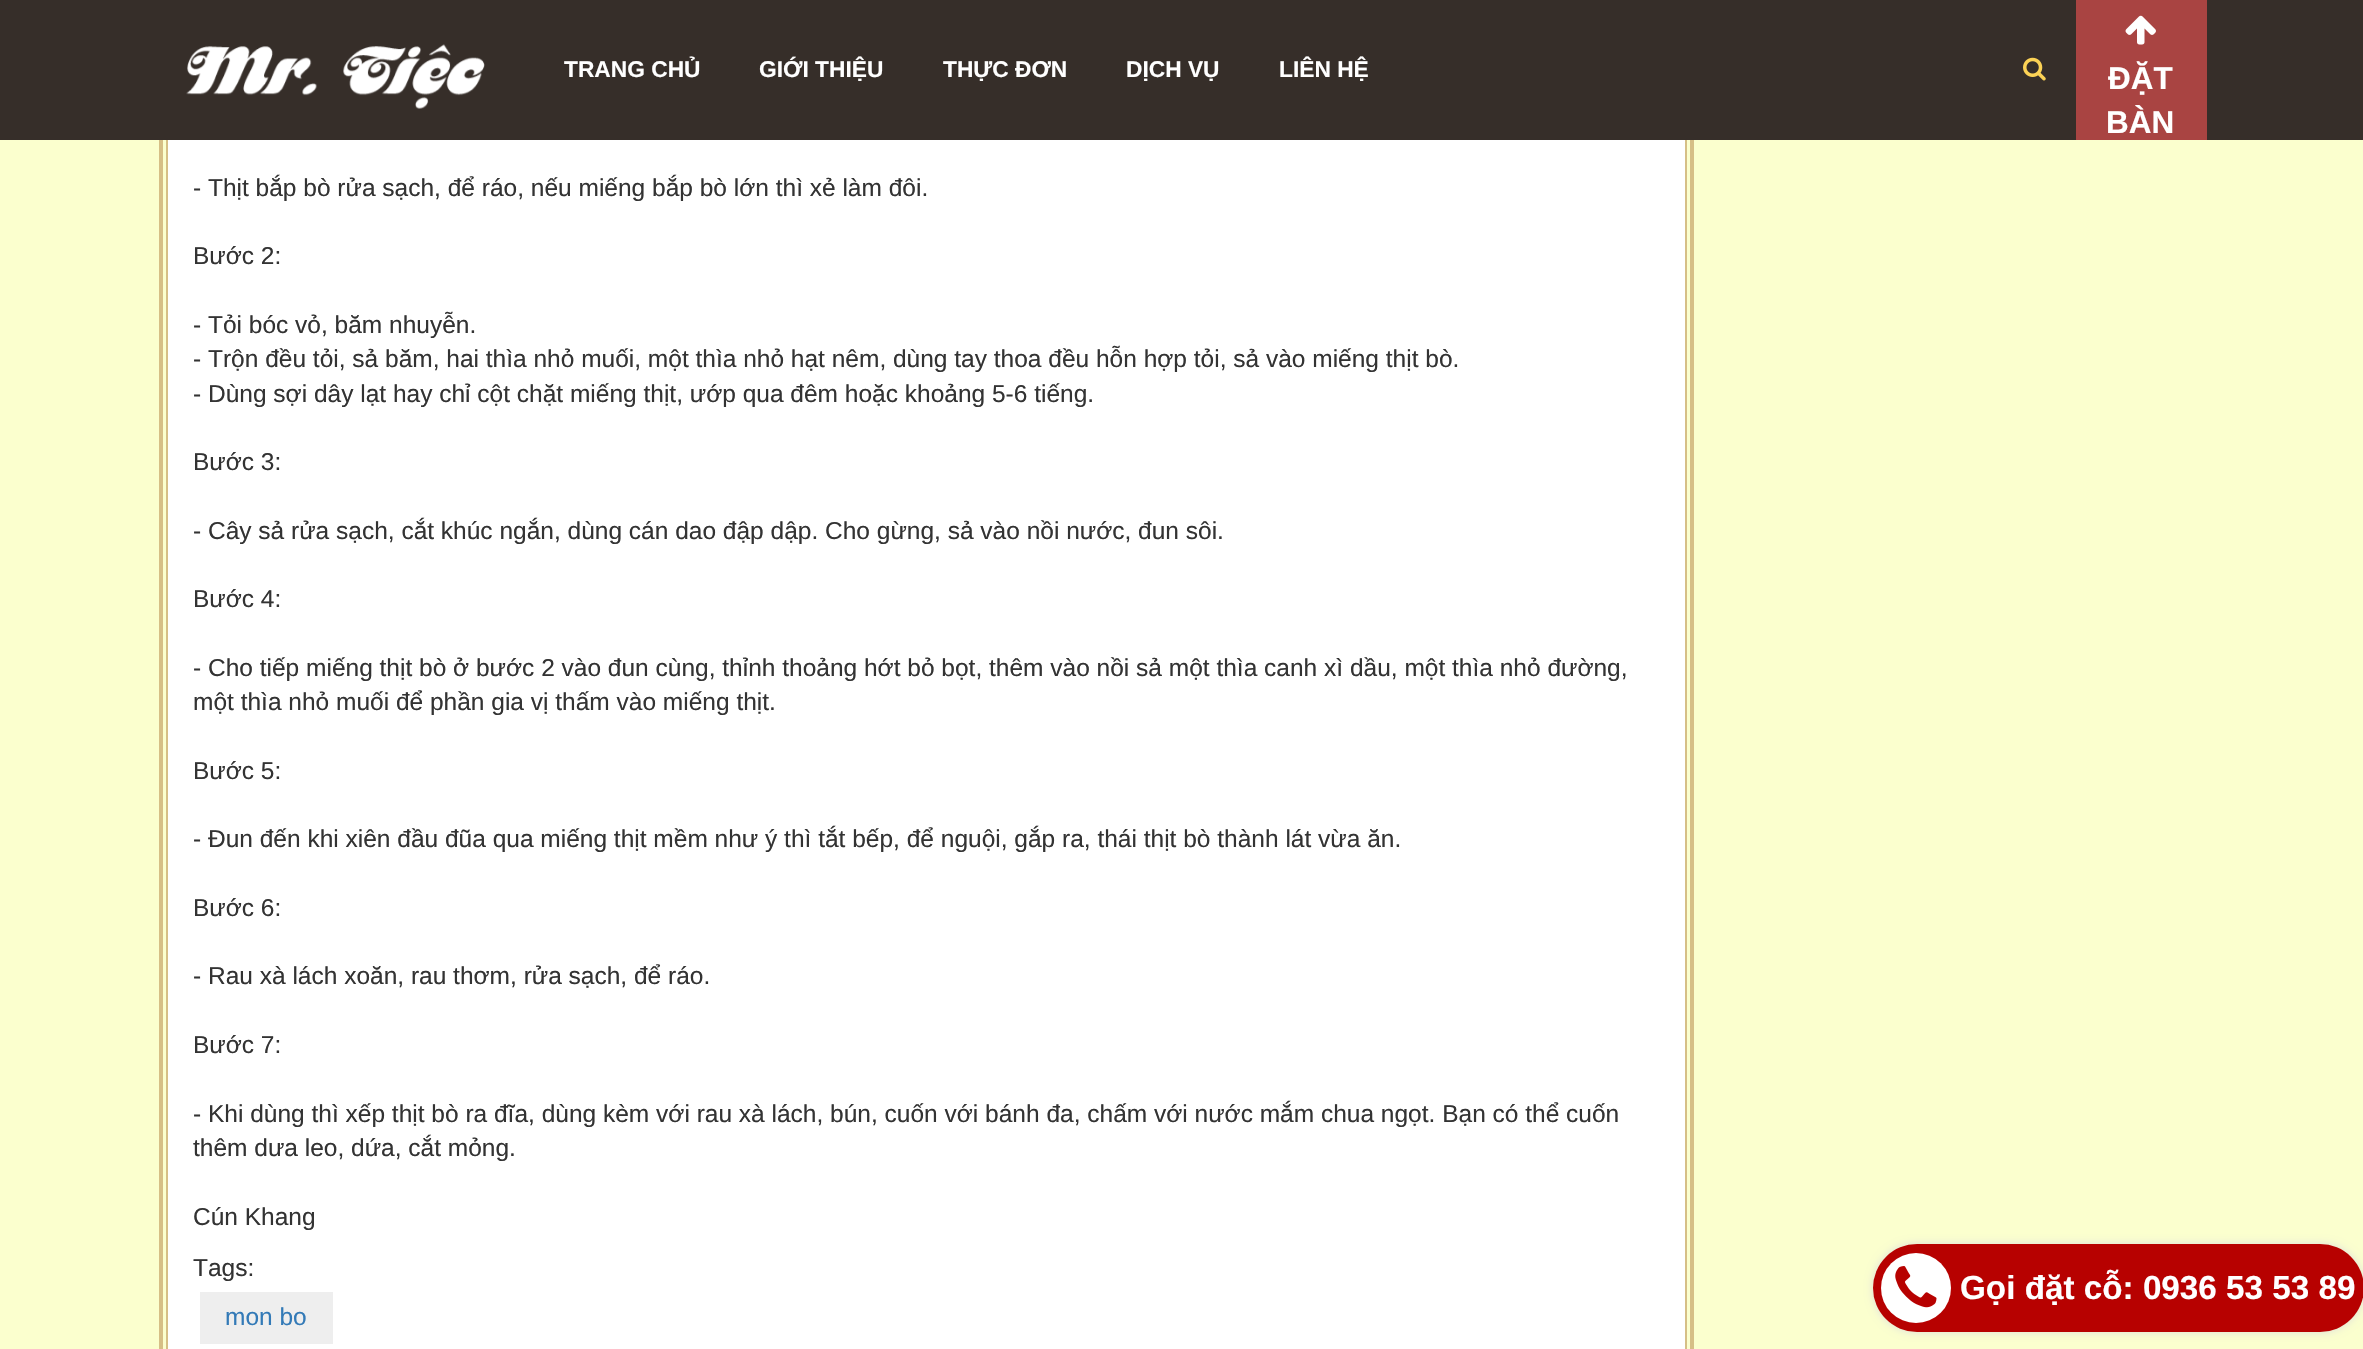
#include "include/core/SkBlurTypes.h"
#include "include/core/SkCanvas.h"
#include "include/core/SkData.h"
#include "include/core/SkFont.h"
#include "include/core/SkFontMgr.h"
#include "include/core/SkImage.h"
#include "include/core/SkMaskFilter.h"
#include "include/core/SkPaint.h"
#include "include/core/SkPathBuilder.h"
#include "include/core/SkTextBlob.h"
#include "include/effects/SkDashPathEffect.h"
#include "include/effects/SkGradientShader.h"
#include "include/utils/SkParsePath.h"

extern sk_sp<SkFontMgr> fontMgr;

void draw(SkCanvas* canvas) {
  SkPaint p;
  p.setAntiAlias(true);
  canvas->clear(SkColorSetRGB(251, 255, 206));
  p.setStyle(SkPaint::kStroke_Style);
  p.setStrokeWidth(4);
  p.setColor(SkColorSetRGB(214, 191, 134));
  canvas->drawRect(SkRect::MakeLTRB(161, -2, 1692, 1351), p);
  p.setStyle(SkPaint::kFill_Style);
  p.setColor(SK_ColorWHITE);
  canvas->drawRect(SkRect::MakeLTRB(168, 140, 1685, 1349), p);
  p.setStyle(SkPaint::kStroke_Style);
  p.setStrokeWidth(2);
  p.setColor(SkColorSetRGB(214, 191, 134));
  canvas->drawRect(SkRect::MakeLTRB(167, -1, 1686, 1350), p);
  p.setStyle(SkPaint::kFill_Style);
  p.setColor(SkColorSetRGB(54, 46, 41));
  canvas->drawRect(SkRect::MakeLTRB(0, 0, 2363, 140), p);
  canvas->drawImageRect(SkImages::DeferredFromEncodedData(SkData::MakeFromFileName("images/1.png")), SkRect::MakeLTRB(186, 44, 485, 109), SkSamplingOptions());
  canvas->drawImageRect(SkImages::DeferredFromEncodedData(SkData::MakeFromFileName("images/2.png")), SkRect::MakeLTRB(2023, 57, 2046, 81), SkSamplingOptions());
  p.setColor(SkColorSetRGB(169, 68, 66));
  canvas->drawRect(SkRect::MakeLTRB(2076, 0, 2207, 140), p);
  canvas->drawImageRect(SkImages::DeferredFromEncodedData(SkData::MakeFromFileName("images/3.png")), SkRect::MakeLTRB(2125, 15, 2156, 45), SkSamplingOptions());
  p.setColor(SkColorSetRGB(238, 238, 238));
  canvas->drawRect(SkRect::MakeLTRB(200, 1292, 333, 1344), p);
  p.setColor(SkColorSetRGB(221, 221, 221));
  p.setMaskFilter(SkMaskFilter::MakeBlur(kNormal_SkBlurStyle, 4.5f));
  canvas->drawRoundRect(SkRect::MakeLTRB(1873, 1244, 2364, 1332), 44, 44, p);
  p.setMaskFilter(nullptr);
  p.setColor(SkColorSetRGB(183, 1, 0));
  canvas->drawRoundRect(SkRect::MakeLTRB(1873, 1244, 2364, 1332), 44, 44, p);
  p.setColor(SK_ColorWHITE);
  canvas->drawCircle(1916, 1288, 35, p);
  canvas->drawImageRect(SkImages::DeferredFromEncodedData(SkData::MakeFromFileName("images/4.png")), SkRect::MakeLTRB(1895, 1266, 1937, 1308), SkSamplingOptions());
  SkFont font1(fontMgr->matchFamilyStyle("Liberation Sans", SkFontStyle::Bold()), 22.75f);
  font1.setSubpixel(true);
  canvas->drawString("TRANG CHỦ", 564, 77, font1, p);
  canvas->drawString("GIỚI THIỆU", 759, 77, font1, p);
  canvas->drawString("THỰC ĐƠN", 943, 77, font1, p);
  canvas->drawString("DỊCH VỤ", 1126, 77, font1, p);
  canvas->drawString("LIÊN HỆ", 1279, 77, font1, p);
  SkFont font2(fontMgr->matchFamilyStyle("Liberation Sans", SkFontStyle::Bold()), 31.5f);
  font2.setSubpixel(true);
  canvas->drawString("ĐẶT", 2108, 89, font2, p);
  canvas->drawString("BÀN", 2106, 133, font2, p);
  SkFont font3(fontMgr->matchFamilyStyle("Liberation Sans", SkFontStyle::Normal()), 24.5f);
  font3.setSubpixel(true);
  p.setColor(SkColorSetRGB(51, 51, 51));
  canvas->drawString("- Thịt bắp bò rửa sạch, để ráo, nếu miếng bắp bò lớn thì xẻ làm đôi.", 193, 196, font3, p);
  canvas->drawString("Bước 2:", 193, 264, font3, p);
  canvas->drawString("- Tỏi bóc vỏ, băm nhuyễn.", 193, 333, font3, p);
  canvas->drawString("- Trộn đều tỏi, sả băm, hai thìa nhỏ muối, một thìa nhỏ hạt nêm, dùng tay thoa đều hỗn hợp tỏi, sả vào miếng thịt bò.", 193, 367, font3, p);
  canvas->drawString("- Dùng sợi dây lạt hay chỉ cột chặt miếng thịt, ướp qua đêm hoặc khoảng 5-6 tiếng.", 193, 402, font3, p);
  canvas->drawString("Bước 3:", 193, 470, font3, p);
  canvas->drawString("- Cây sả rửa sạch, cắt khúc ngắn, dùng cán dao đập dập. Cho gừng, sả vào nồi nước, đun sôi.", 193, 539, font3, p);
  canvas->drawString("Bước 4:", 193, 607, font3, p);
  canvas->drawString("- Cho tiếp miếng thịt bò ở bước 2 vào đun cùng, thỉnh thoảng hớt bỏ bọt, thêm vào nồi sả một thìa canh xì dầu, một thìa nhỏ đường,", 193, 676, font3, p);
  canvas->drawString("một thìa nhỏ muối để phần gia vị thấm vào miếng thịt.", 193, 710, font3, p);
  canvas->drawString("Bước 5:", 193, 779, font3, p);
  canvas->drawString("- Đun đến khi xiên đầu đũa qua miếng thịt mềm như ý thì tắt bếp, để nguội, gắp ra, thái thịt bò thành lát vừa ăn.", 193, 847, font3, p);
  canvas->drawString("Bước 6:", 193, 916, font3, p);
  canvas->drawString("- Rau xà lách xoăn, rau thơm, rửa sạch, để ráo.", 193, 984, font3, p);
  canvas->drawString("Bước 7:", 193, 1053, font3, p);
  canvas->drawString("- Khi dùng thì xếp thịt bò ra đĩa, dùng kèm với rau xà lách, bún, cuốn với bánh đa, chấm với nước mắm chua ngọt. Bạn có thể cuốn", 193, 1122, font3, p);
  canvas->drawString("thêm dưa leo, dứa, cắt mỏng.", 193, 1156, font3, p);
  canvas->drawString("Cún Khang", 193, 1225, font3, p);
  canvas->drawString("Tags:", 193, 1276, font3, p);
  p.setColor(SkColorSetRGB(51, 122, 183));
  canvas->drawString("mon bo", 225, 1325, font3, p);
  SkFont font4(fontMgr->matchFamilyStyle("Liberation Sans", SkFontStyle::Bold()), 33.25f);
  font4.setSubpixel(true);
  p.setColor(SK_ColorWHITE);
  canvas->drawString("Gọi đặt cỗ: 0936 53 53 89", 1960, 1299, font4, p);
}
